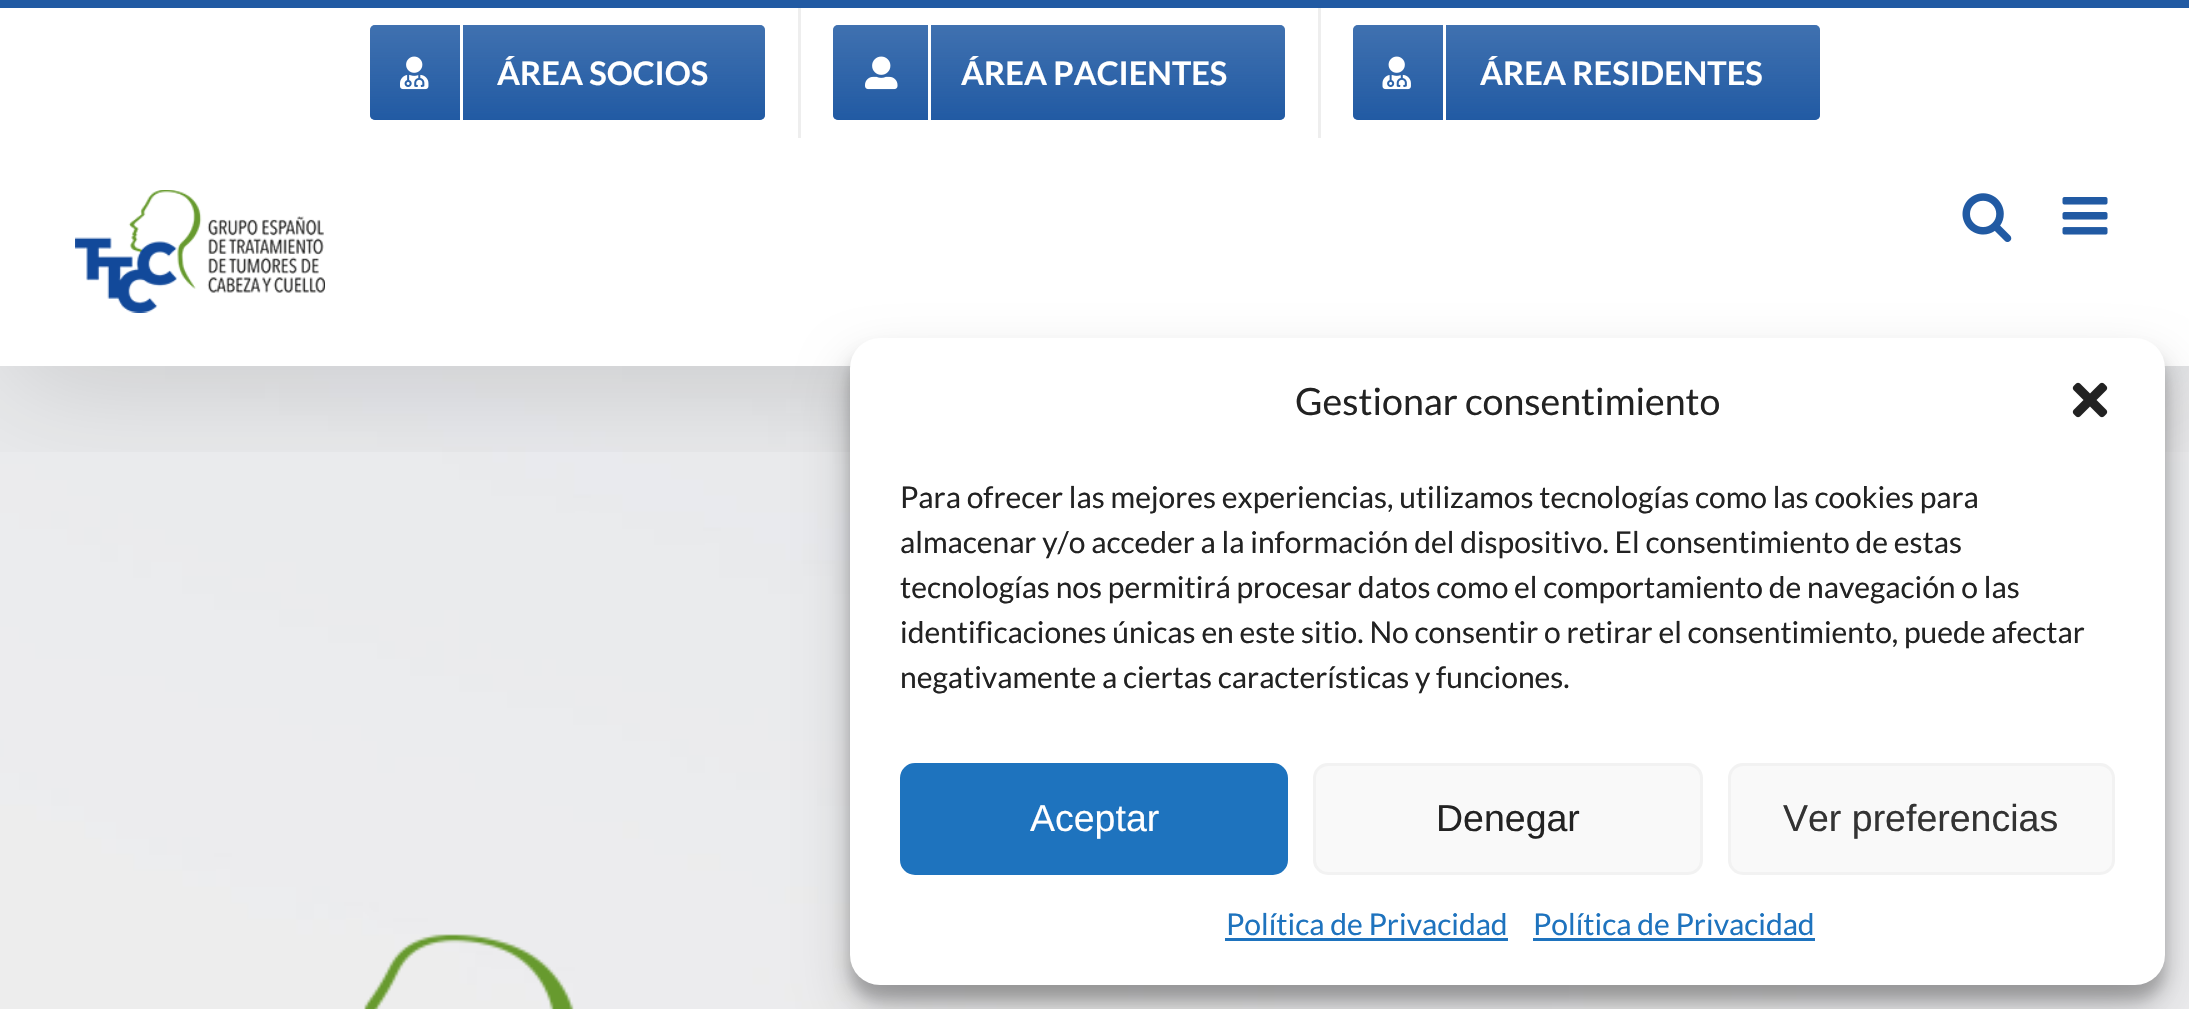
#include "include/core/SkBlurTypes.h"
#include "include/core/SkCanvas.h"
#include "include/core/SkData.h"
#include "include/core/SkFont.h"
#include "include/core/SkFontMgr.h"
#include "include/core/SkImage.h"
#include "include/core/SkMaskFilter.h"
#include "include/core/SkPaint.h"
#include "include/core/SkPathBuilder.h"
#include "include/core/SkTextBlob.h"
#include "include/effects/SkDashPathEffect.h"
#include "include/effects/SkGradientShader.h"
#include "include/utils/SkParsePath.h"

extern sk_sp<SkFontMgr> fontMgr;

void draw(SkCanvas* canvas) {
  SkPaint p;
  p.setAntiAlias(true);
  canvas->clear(SK_ColorWHITE);
  canvas->drawImageRect(SkImages::DeferredFromEncodedData(SkData::MakeFromFileName("images/7.png")), SkRect::MakeLTRB(0, 366, 2189, 1009), SkSamplingOptions());
  canvas->save();
  canvas->clipRect(SkRect::MakeLTRB(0, 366, 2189, 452));
  p.setColor(SkColorSetARGB(36, 0, 0, 0));
  p.setMaskFilter(SkMaskFilter::MakeBlur(kNormal_SkBlurStyle, 62.5f));
  canvas->drawRect(SkRect::MakeLTRB(5, 30, 2185, 385), p);
  p.setMaskFilter(nullptr);
  canvas->restore();
  p.setColor(SkColorSetRGB(33, 90, 163));
  canvas->drawRect(SkRect::MakeLTRB(0, 0, 2189, 8), p);
  p.setColor(SkColorSetRGB(115, 151, 197));
  canvas->drawRoundRect(SkRect::MakeLTRB(370, 25, 765, 120), 5, 5, p);
  {
    const SkColor colors[] = {SkColorSetARGB(161, 33, 90, 163), SkColorSetRGB(33, 90, 163)};
    const float stops[] = {0, 1};
    const SkPoint ends[] = {{568, 25}, {568, 120}};
    p.setShader(SkGradientShader::MakeLinear(ends, colors, stops, 2, SkTileMode::kClamp));
    p.setAlpha(255);
  }
  canvas->drawRoundRect(SkRect::MakeLTRB(370, 25, 765, 120), 5, 5, p);
  p.setShader(nullptr);
  p.setColor(SK_ColorWHITE);
  canvas->drawRect(SkRect::MakeLTRB(460, 25, 463, 120), p);
  canvas->drawImageRect(SkImages::DeferredFromEncodedData(SkData::MakeFromFileName("images/1.png")), SkRect::MakeLTRB(400, 56, 429, 90), SkSamplingOptions());
  p.setColor(SkColorSetRGB(238, 238, 238));
  canvas->drawRect(SkRect::MakeLTRB(798, 8, 801, 138), p);
  p.setColor(SkColorSetRGB(115, 151, 197));
  canvas->drawRoundRect(SkRect::MakeLTRB(833, 25, 1285, 120), 5, 5, p);
  {
    const SkColor colors[] = {SkColorSetARGB(161, 33, 90, 163), SkColorSetRGB(33, 90, 163)};
    const float stops[] = {0, 1};
    const SkPoint ends[] = {{1059, 25}, {1059, 120}};
    p.setShader(SkGradientShader::MakeLinear(ends, colors, stops, 2, SkTileMode::kClamp));
    p.setAlpha(255);
  }
  canvas->drawRoundRect(SkRect::MakeLTRB(833, 25, 1285, 120), 5, 5, p);
  p.setShader(nullptr);
  p.setColor(SK_ColorWHITE);
  canvas->drawRect(SkRect::MakeLTRB(928, 25, 931, 120), p);
  canvas->drawImageRect(SkImages::DeferredFromEncodedData(SkData::MakeFromFileName("images/2.png")), SkRect::MakeLTRB(865, 56, 898, 90), SkSamplingOptions());
  p.setColor(SkColorSetRGB(238, 238, 238));
  canvas->drawRect(SkRect::MakeLTRB(1318, 8, 1321, 138), p);
  p.setColor(SkColorSetRGB(115, 151, 197));
  canvas->drawRoundRect(SkRect::MakeLTRB(1353, 25, 1820, 120), 5, 5, p);
  {
    const SkColor colors[] = {SkColorSetARGB(161, 33, 90, 163), SkColorSetRGB(33, 90, 163)};
    const float stops[] = {0, 1};
    const SkPoint ends[] = {{1586, 25}, {1586, 120}};
    p.setShader(SkGradientShader::MakeLinear(ends, colors, stops, 2, SkTileMode::kClamp));
    p.setAlpha(255);
  }
  canvas->drawRoundRect(SkRect::MakeLTRB(1353, 25, 1820, 120), 5, 5, p);
  p.setShader(nullptr);
  p.setColor(SK_ColorWHITE);
  canvas->drawRect(SkRect::MakeLTRB(1443, 25, 1446, 120), p);
  canvas->drawImageRect(SkImages::DeferredFromEncodedData(SkData::MakeFromFileName("images/3.png")), SkRect::MakeLTRB(1382, 56, 1411, 90), SkSamplingOptions());
  canvas->drawRect(SkRect::MakeLTRB(0, 365, 2189, 366), p);
  canvas->drawImageRect(SkImages::DeferredFromEncodedData(SkData::MakeFromFileName("images/4.png")), SkRect::MakeLTRB(75, 190, 325, 313), SkSamplingOptions());
  canvas->drawImageRect(SkImages::DeferredFromEncodedData(SkData::MakeFromFileName("images/5.png")), SkRect::MakeLTRB(1962, 193, 2012, 242), SkSamplingOptions());
  canvas->drawImageRect(SkImages::DeferredFromEncodedData(SkData::MakeFromFileName("images/6.png")), SkRect::MakeLTRB(2062, 197, 2108, 235), SkSamplingOptions());
  canvas->drawImageRect(SkImages::DeferredFromEncodedData(SkData::MakeFromFileName("images/8.png")), SkRect::MakeLTRB(364, 934, 574, 1009), SkSamplingOptions());
  p.setColor(SkColorSetARGB(59, 0, 0, 0));
  p.setMaskFilter(SkMaskFilter::MakeBlur(kNormal_SkBlurStyle, 7.5f));
  canvas->drawRoundRect(SkRect::MakeLTRB(850, 353, 2165, 1000), 30, 30, p);
  p.setMaskFilter(nullptr);
  p.setColor(SkColorSetARGB(48, 0, 0, 0));
  p.setMaskFilter(SkMaskFilter::MakeBlur(kNormal_SkBlurStyle, 25));
  canvas->drawRoundRect(SkRect::MakeLTRB(850, 363, 2165, 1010), 30, 30, p);
  p.setMaskFilter(nullptr);
  p.setColor(SK_ColorWHITE);
  canvas->drawRoundRect(SkRect::MakeLTRB(850, 338, 2165, 985), 30, 30, p);
  canvas->drawImageRect(SkImages::DeferredFromEncodedData(SkData::MakeFromFileName("images/9.png")), SkRect::MakeLTRB(2072, 382, 2108, 418), SkSamplingOptions());
  p.setColor(SkColorSetRGB(30, 115, 190));
  canvas->drawRoundRect(SkRect::MakeLTRB(901.5f, 764.5f, 1286.5f, 873.5f), 13.5f, 13.5f, p);
  p.setStyle(SkPaint::kStroke_Style);
  p.setStrokeWidth(3);
  canvas->drawRoundRect(SkRect::MakeLTRB(901.5f, 764.5f, 1286.5f, 873.5f), 13.5f, 13.5f, p);
  p.setStyle(SkPaint::kFill_Style);
  p.setColor(SkColorSetRGB(249, 249, 249));
  canvas->drawRoundRect(SkRect::MakeLTRB(1314.5f, 764.5f, 1701.5f, 873.5f), 13.5f, 13.5f, p);
  p.setStyle(SkPaint::kStroke_Style);
  p.setColor(SkColorSetRGB(242, 242, 242));
  canvas->drawRoundRect(SkRect::MakeLTRB(1314.5f, 764.5f, 1701.5f, 873.5f), 13.5f, 13.5f, p);
  p.setStyle(SkPaint::kFill_Style);
  p.setColor(SkColorSetRGB(249, 249, 249));
  canvas->drawRoundRect(SkRect::MakeLTRB(1729.5f, 764.5f, 2113.5f, 873.5f), 13.5f, 13.5f, p);
  p.setStyle(SkPaint::kStroke_Style);
  p.setColor(SkColorSetRGB(242, 242, 242));
  canvas->drawRoundRect(SkRect::MakeLTRB(1729.5f, 764.5f, 2113.5f, 873.5f), 13.5f, 13.5f, p);
  p.setStyle(SkPaint::kFill_Style);
  p.setColor(SkColorSetRGB(30, 115, 190));
  canvas->drawRect(SkRect::MakeLTRB(1225, 938, 1508, 941), p);
  canvas->drawRect(SkRect::MakeLTRB(1533, 938, 1815, 941), p);
  SkFont font1(fontMgr->matchFamilyStyle("Lato", SkFontStyle::Bold()), 32.5f);
  font1.setSubpixel(true);
  p.setColor(SK_ColorWHITE);
  canvas->drawString("ÁREA SOCIOS", 497, 85, font1, p);
  canvas->drawString("ÁREA PACIENTES", 961, 85, font1, p);
  canvas->drawString("ÁREA RESIDENTES", 1480, 85, font1, p);
  SkFont font2(fontMgr->matchFamilyStyle("Lato", SkFontStyle::Normal()), 37.5f);
  font2.setSubpixel(true);
  p.setColor(SkColorSetRGB(34, 34, 34));
  canvas->drawString("Gestionar consentimiento", 1295, 415, font2, p);
  SkFont font3(fontMgr->matchFamilyStyle("Lato", SkFontStyle::Normal()), 30);
  font3.setSubpixel(true);
  canvas->drawString("Para ofrecer las mejores experiencias, utilizamos tecnologías como las cookies para", 900, 508, font3, p);
  canvas->drawString("almacenar y/o acceder a la información del dispositivo. El consentimiento de estas", 900, 553, font3, p);
  canvas->drawString("tecnologías nos permitirá procesar datos como el comportamiento de navegación o las", 900, 598, font3, p);
  canvas->drawString("identificaciones únicas en este sitio. No consentir o retirar el consentimiento, puede afectar", 900, 643, font3, p);
  canvas->drawString("negativamente a ciertas características y funciones.", 900, 688, font3, p);
  SkFont font4(fontMgr->matchFamilyStyle("Liberation Sans", SkFontStyle::Normal()), 37.5f);
  font4.setSubpixel(true);
  p.setColor(SK_ColorWHITE);
  canvas->drawString("Aceptar", 1030, 831, font4, p);
  p.setColor(SkColorSetRGB(34, 34, 34));
  canvas->drawString("Denegar", 1436, 831, font4, p);
  p.setColor(SkColorSetRGB(51, 51, 51));
  canvas->drawString("Ver preferencias", 1783, 831, font4, p);
  p.setColor(SkColorSetRGB(30, 115, 190));
  canvas->drawString("Política de Privacidad", 1226, 935, font3, p);
  canvas->drawString("Política de Privacidad", 1533, 935, font3, p);
}
